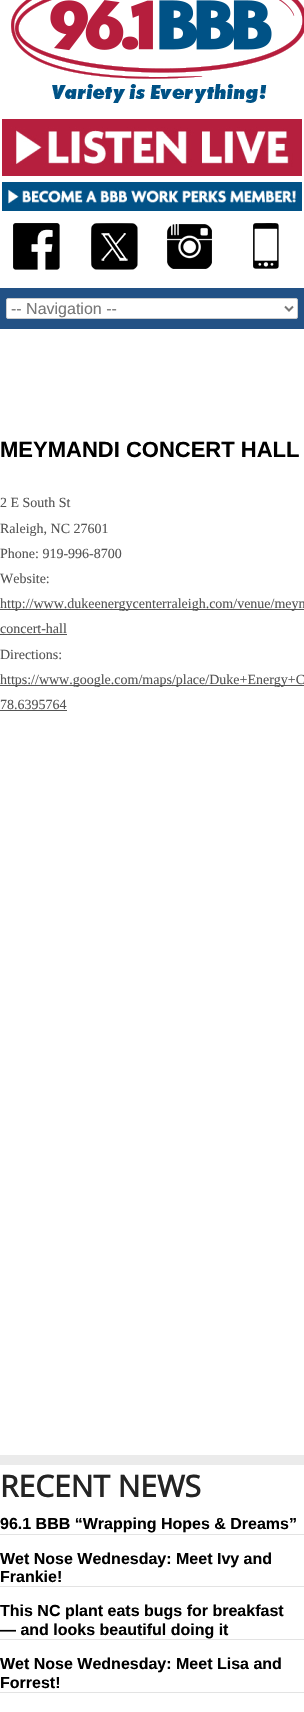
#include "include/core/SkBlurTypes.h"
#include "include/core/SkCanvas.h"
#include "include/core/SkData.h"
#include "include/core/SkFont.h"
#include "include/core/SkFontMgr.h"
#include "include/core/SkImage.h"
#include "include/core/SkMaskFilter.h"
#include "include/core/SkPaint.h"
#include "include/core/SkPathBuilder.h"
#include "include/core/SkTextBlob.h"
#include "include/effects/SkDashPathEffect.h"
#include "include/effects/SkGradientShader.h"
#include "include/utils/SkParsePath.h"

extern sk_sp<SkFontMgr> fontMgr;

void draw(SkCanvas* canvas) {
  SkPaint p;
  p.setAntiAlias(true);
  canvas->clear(SK_ColorWHITE);
  canvas->drawImageRect(SkImages::DeferredFromEncodedData(SkData::MakeFromFileName("images/1.png")), SkRect::MakeLTRB(11, 0, 304, 103), SkSamplingOptions());
  canvas->drawImageRect(SkImages::DeferredFromEncodedData(SkData::MakeFromFileName("images/2.png")), SkRect::MakeLTRB(2, 119, 302, 176), SkSamplingOptions());
  canvas->drawImageRect(SkImages::DeferredFromEncodedData(SkData::MakeFromFileName("images/3.png")), SkRect::MakeLTRB(2, 182, 302, 211), SkSamplingOptions());
  canvas->drawImageRect(SkImages::DeferredFromEncodedData(SkData::MakeFromFileName("images/4.png")), SkRect::MakeLTRB(13, 223, 60, 270), SkSamplingOptions());
  canvas->drawImageRect(SkImages::DeferredFromEncodedData(SkData::MakeFromFileName("images/5.png")), SkRect::MakeLTRB(91, 223, 138, 270), SkSamplingOptions());
  canvas->drawImageRect(SkImages::DeferredFromEncodedData(SkData::MakeFromFileName("images/6.png")), SkRect::MakeLTRB(167, 224, 212, 269), SkSamplingOptions());
  canvas->drawImageRect(SkImages::DeferredFromEncodedData(SkData::MakeFromFileName("images/7.png")), SkRect::MakeLTRB(253, 223, 279, 269), SkSamplingOptions());
  p.setColor(SkColorSetRGB(34, 81, 133));
  canvas->drawRect(SkRect::MakeLTRB(0, 288, 304, 329), p);
  p.setColor(SK_ColorWHITE);
  canvas->drawRoundRect(SkRect::MakeLTRB(6.5f, 298.5f, 297.5f, 318.5f), 1.5f, 1.5f, p);
  p.setStyle(SkPaint::kStroke_Style);
  p.setStrokeWidth(1);
  p.setColor(SkColorSetRGB(204, 204, 204));
  canvas->drawRoundRect(SkRect::MakeLTRB(6.5f, 298.5f, 297.5f, 318.5f), 1.5f, 1.5f, p);
  p.setStrokeWidth(2);
  p.setColor(SkColorSetRGB(119, 119, 119));
  canvas->drawPath(SkPathBuilder().moveTo(285, 306.5f).lineTo(289, 310.5f).lineTo(293, 306.5f).detach(), p);
  p.setStyle(SkPaint::kFill_Style);
  p.setColor(SkColorSetRGB(85, 85, 85));
  canvas->drawRect(SkRect::MakeLTRB(0, 609, 304, 610), p);
  canvas->drawRect(SkRect::MakeLTRB(0, 634, 67, 635), p);
  canvas->drawRect(SkRect::MakeLTRB(0, 685, 304, 686), p);
  canvas->drawRect(SkRect::MakeLTRB(0, 710, 67, 711), p);
  p.setColor(SkColorSetRGB(235, 235, 235));
  canvas->drawRect(SkRect::MakeLTRB(0, 1455, 304, 1465), p);
  p.setColor(SkColorSetRGB(227, 227, 227));
  canvas->drawRect(SkRect::MakeLTRB(0, 1534, 304, 1535), p);
  canvas->drawRect(SkRect::MakeLTRB(0, 1586, 304, 1587), p);
  canvas->drawRect(SkRect::MakeLTRB(0, 1639, 304, 1640), p);
  canvas->drawRect(SkRect::MakeLTRB(0, 1692, 304, 1693), p);
  SkFont font1(fontMgr->matchFamilyStyle("Liberation Sans", SkFontStyle::Normal()), 16);
  font1.setSubpixel(true);
  p.setColor(SkColorSetRGB(119, 119, 119));
  canvas->drawString("-- Navigation --", 11, 314, font1, p);
  SkFont font2(fontMgr->matchFamilyStyle("Liberation Sans", SkFontStyle::Bold()), 22);
  font2.setSubpixel(true);
  p.setColor(SK_ColorBLACK);
  canvas->drawString("MEYMANDI CONCERT HALL", 0, 457, font2, p);
  SkFont font3(fontMgr->matchFamilyStyle("Liberation Serif", SkFontStyle::Normal()), 14);
  font3.setSubpixel(true);
  p.setColor(SkColorSetRGB(85, 85, 85));
  canvas->drawString("2 E South St", 0, 507, font3, p);
  canvas->drawString("Raleigh, NC 27601", 0, 533, font3, p);
  canvas->drawString("Phone: 919-996-8700", 0, 558, font3, p);
  canvas->drawString("Website:", 0, 583, font3, p);
  canvas->drawString("http://www.dukeenergycenterraleigh.com/venue/meym", 0, 608, font3, p);
  canvas->drawString("concert-hall", 0, 633, font3, p);
  canvas->drawString("Directions:", 0, 659, font3, p);
  canvas->drawString("https://www.google.com/maps/place/Duke+Energy+C", 0, 684, font3, p);
  canvas->drawString("78.6395764", 0, 709, font3, p);
  SkFont font4(fontMgr->matchFamilyStyle("Open Sans", SkFontStyle::Bold()), 30);
  font4.setSubpixel(true);
  p.setColor(SkColorSetRGB(36, 36, 36));
  canvas->drawString("RECENT NEWS", 0, 1497, font4, p);
  SkFont font5(fontMgr->matchFamilyStyle("Liberation Sans", SkFontStyle::Bold()), 16);
  font5.setSubpixel(true);
  p.setColor(SK_ColorBLACK);
  canvas->drawString("96.1 BBB “Wrapping Hopes & Dreams”", 0, 1529, font5, p);
  canvas->drawString("Wet Nose Wednesday: Meet Ivy and", 0, 1564, font5, p);
  canvas->drawString("Frankie!", 0, 1582, font5, p);
  canvas->drawString("This NC plant eats bugs for breakfast", 0, 1616, font5, p);
  canvas->drawString("— and looks beautiful doing it", 0, 1635, font5, p);
  canvas->drawString("Wet Nose Wednesday: Meet Lisa and", 0, 1669, font5, p);
  canvas->drawString("Forrest!", 0, 1688, font5, p);
}
